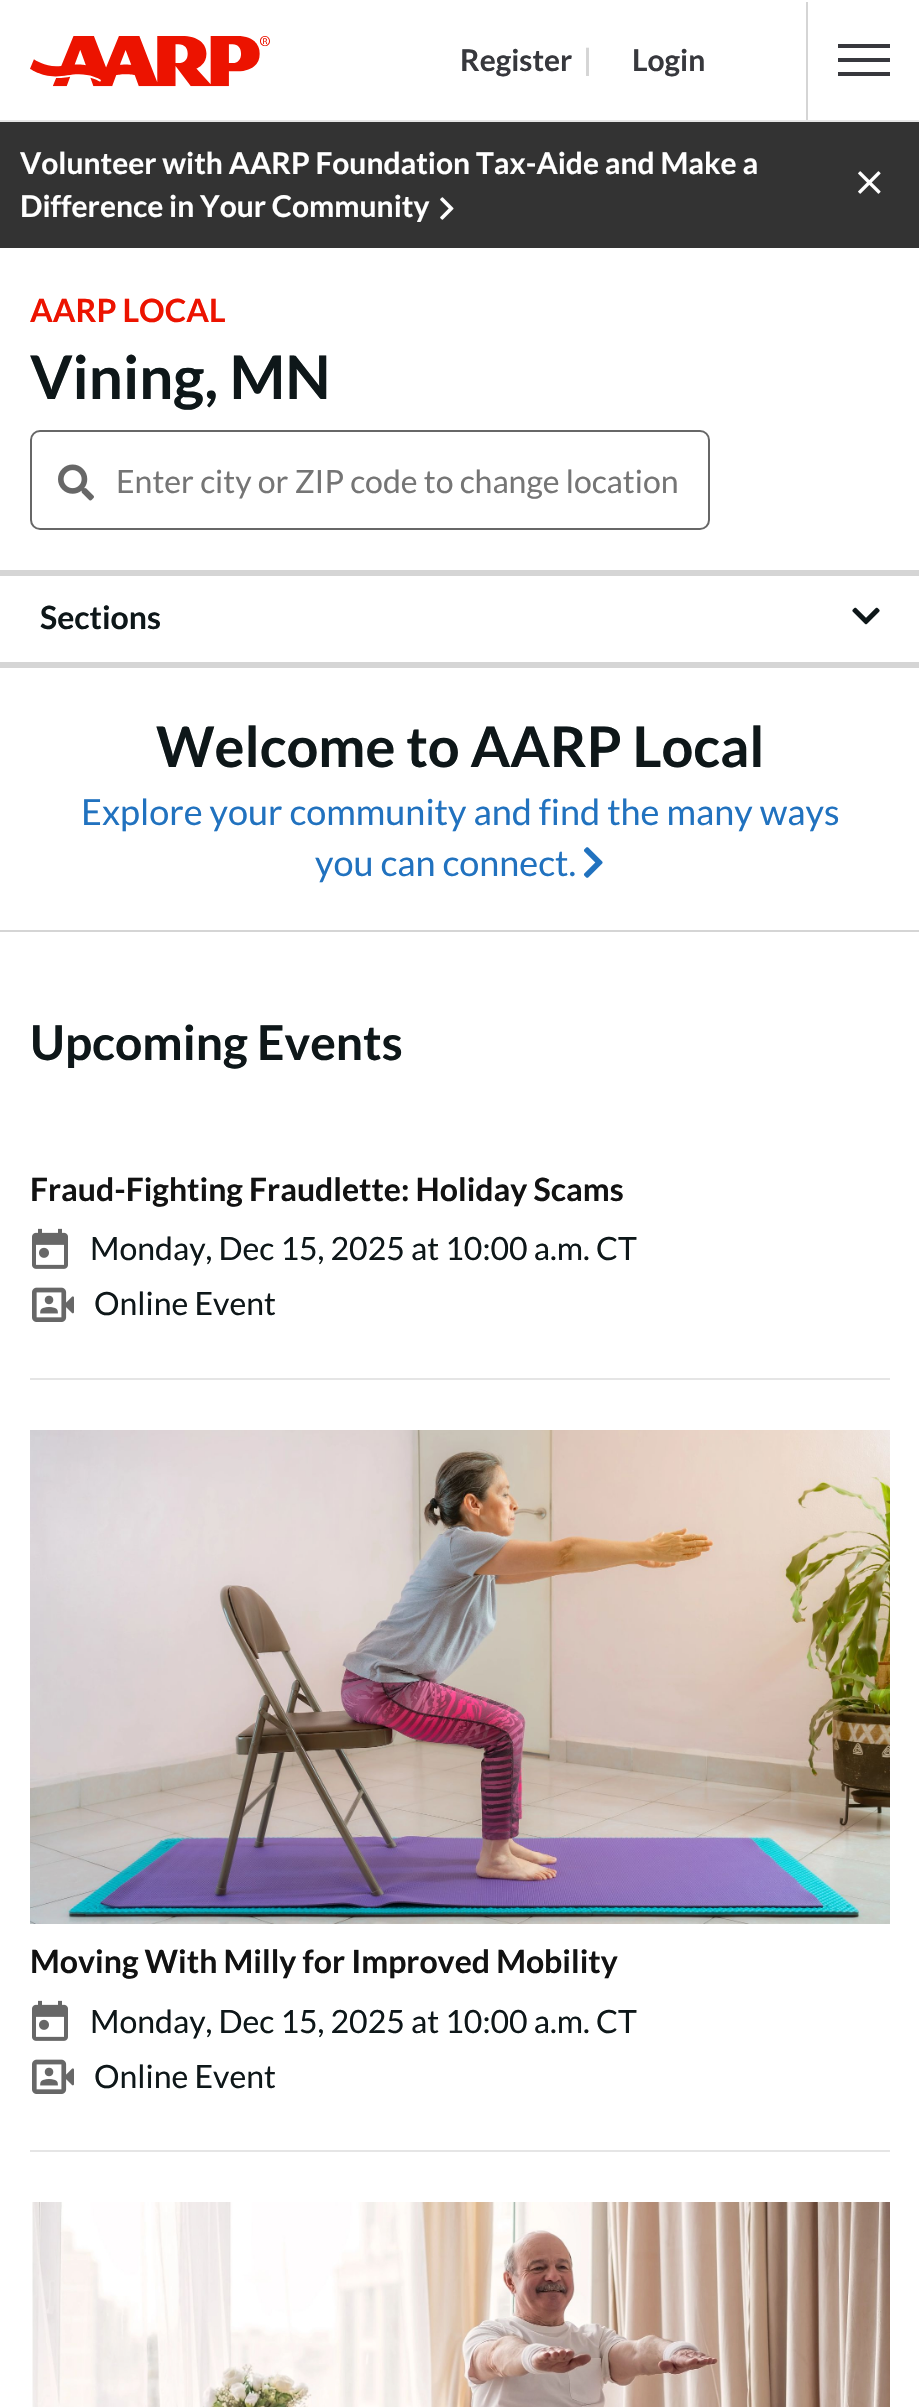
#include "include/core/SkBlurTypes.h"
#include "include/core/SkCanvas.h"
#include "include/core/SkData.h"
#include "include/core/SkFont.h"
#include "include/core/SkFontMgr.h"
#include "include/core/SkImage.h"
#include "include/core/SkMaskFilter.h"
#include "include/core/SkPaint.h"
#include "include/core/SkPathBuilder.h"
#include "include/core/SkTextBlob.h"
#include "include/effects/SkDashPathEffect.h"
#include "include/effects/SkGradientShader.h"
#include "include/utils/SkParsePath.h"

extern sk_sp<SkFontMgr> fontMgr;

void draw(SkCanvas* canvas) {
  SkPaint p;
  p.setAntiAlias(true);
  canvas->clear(SK_ColorWHITE);
  p.setColor(SkColorSetRGB(229, 229, 229));
  canvas->drawRect(SkRect::MakeLTRB(0, 120, 919, 122), p);
  canvas->drawImageRect(SkImages::DeferredFromEncodedData(SkData::MakeFromFileName("images/1.png")), SkRect::MakeLTRB(30, 36, 270, 87), SkSamplingOptions());
  p.setColor(SkColorSetRGB(213, 213, 213));
  canvas->drawRect(SkRect::MakeLTRB(806, 2, 808, 120), p);
  p.setColor(SkColorSetRGB(55, 56, 61));
  canvas->drawRect(SkRect::MakeLTRB(838, 44, 890, 48), p);
  canvas->drawRect(SkRect::MakeLTRB(838, 58, 890, 62), p);
  canvas->drawRect(SkRect::MakeLTRB(838, 72, 890, 76), p);
  p.setColor(SkColorSetRGB(51, 51, 51));
  canvas->drawRect(SkRect::MakeLTRB(0, 122, 919, 248), p);
  canvas->drawImageRect(SkImages::DeferredFromEncodedData(SkData::MakeFromFileName("images/2.png")), SkRect::MakeLTRB(440, 197, 454, 220), SkSamplingOptions());
  canvas->drawImageRect(SkImages::DeferredFromEncodedData(SkData::MakeFromFileName("images/3.png")), SkRect::MakeLTRB(858, 171, 881, 194), SkSamplingOptions());
  p.setStyle(SkPaint::kStroke_Style);
  p.setStrokeWidth(2);
  p.setColor(SkColorSetRGB(103, 103, 103));
  canvas->drawRoundRect(SkRect::MakeLTRB(31, 431, 709, 529), 9, 9, p);
  canvas->drawImageRect(SkImages::DeferredFromEncodedData(SkData::MakeFromFileName("images/4.png")), SkRect::MakeLTRB(58, 464, 94, 501), SkSamplingOptions());
  p.setStyle(SkPaint::kFill_Style);
  p.setColor(SkColorSetRGB(213, 213, 213));
  canvas->drawRect(SkRect::MakeLTRB(0, 570, 919, 576), p);
  canvas->drawRect(SkRect::MakeLTRB(0, 662, 919, 668), p);
  canvas->drawImageRect(SkImages::DeferredFromEncodedData(SkData::MakeFromFileName("images/5.png")), SkRect::MakeLTRB(852, 607, 880, 625), SkSamplingOptions());
  canvas->drawRect(SkRect::MakeLTRB(0, 930, 919, 932), p);
  canvas->drawImageRect(SkImages::DeferredFromEncodedData(SkData::MakeFromFileName("images/6.png")), SkRect::MakeLTRB(583, 847, 603, 878), SkSamplingOptions());
  canvas->drawImageRect(SkImages::DeferredFromEncodedData(SkData::MakeFromFileName("images/7.png")), SkRect::MakeLTRB(32, 1228, 68, 1269), SkSamplingOptions());
  canvas->drawImageRect(SkImages::DeferredFromEncodedData(SkData::MakeFromFileName("images/8.png")), SkRect::MakeLTRB(32, 1287, 74, 1322), SkSamplingOptions());
  p.setColor(SkColorSetRGB(229, 229, 229));
  canvas->drawRect(SkRect::MakeLTRB(30, 1378, 890, 1380), p);
  canvas->drawImageRect(SkImages::DeferredFromEncodedData(SkData::MakeFromFileName("images/9.png")), SkRect::MakeLTRB(30, 1430, 890, 1924), SkSamplingOptions());
  canvas->drawImageRect(SkImages::DeferredFromEncodedData(SkData::MakeFromFileName("images/7.png")), SkRect::MakeLTRB(32, 2000, 68, 2041), SkSamplingOptions());
  canvas->drawImageRect(SkImages::DeferredFromEncodedData(SkData::MakeFromFileName("images/8.png")), SkRect::MakeLTRB(32, 2059, 74, 2094), SkSamplingOptions());
  canvas->drawRect(SkRect::MakeLTRB(30, 2150, 890, 2152), p);
  canvas->drawImageRect(SkImages::DeferredFromEncodedData(SkData::MakeFromFileName("images/10.png")), SkRect::MakeLTRB(32, 2202, 890, 2407), SkSamplingOptions());
  SkFont font1(fontMgr->matchFamilyStyle("Lato", SkFontStyle::Bold()), 30);
  font1.setSubpixel(true);
  p.setColor(SkColorSetRGB(55, 56, 61));
  canvas->drawString("Register", 460, 71, font1, p);
  p.setColor(SkColorSetRGB(213, 213, 213));
  canvas->drawString("|", 583, 71, font1, p);
  p.setColor(SkColorSetRGB(55, 56, 61));
  canvas->drawString("Login", 632, 71, font1, p);
  p.setColor(SK_ColorWHITE);
  canvas->drawString("Volunteer with AARP Foundation Tax-Aide and Make a", 20, 174, font1, p);
  canvas->drawString("Difference in Your Community", 20, 217, font1, p);
  SkFont font2(fontMgr->matchFamilyStyle("Lato", SkFontStyle::Bold()), 32);
  font2.setSubpixel(true);
  p.setColor(SkColorSetRGB(236, 19, 0));
  canvas->drawString("AARP LOCAL", 30, 322, font2, p);
  SkFont font3(fontMgr->matchFamilyStyle("Lato", SkFontStyle::Bold()), 60);
  font3.setSubpixel(true);
  p.setColor(SkColorSetRGB(14, 23, 25));
  canvas->drawString("Vining, MN", 30, 399, font3, p);
  SkFont font4(fontMgr->matchFamilyStyle("Lato", SkFontStyle::Normal()), 32);
  font4.setSubpixel(true);
  p.setColor(SkColorSetRGB(117, 117, 117));
  canvas->drawString("Enter city or ZIP code to change location", 116, 493, font4, p);
  p.setColor(SkColorSetRGB(14, 23, 25));
  canvas->drawString("Sections", 40, 629, font2, p);
  SkFont font5(fontMgr->matchFamilyStyle("Lato", SkFontStyle::Bold()), 56);
  font5.setSubpixel(true);
  canvas->drawString("Welcome to AARP Local", 156, 767, font5, p);
  SkFont font6(fontMgr->matchFamilyStyle("Lato", SkFontStyle::Normal()), 36);
  font6.setSubpixel(true);
  p.setColor(SkColorSetRGB(33, 114, 191));
  canvas->drawString("Explore your community and find the many ways", 81, 825, font6, p);
  canvas->drawString("you can connect.", 315, 876, font6, p);
  SkFont font7(fontMgr->matchFamilyStyle("Lato", SkFontStyle::Bold()), 48);
  font7.setSubpixel(true);
  p.setColor(SkColorSetRGB(14, 23, 25));
  canvas->drawString("Upcoming Events", 30, 1060, font7, p);
  p.setColor(SkColorSetRGB(18, 18, 18));
  canvas->drawString("Fraud-Fighting Fraudlette: Holiday Scams", 30, 1201, font2, p);
  p.setColor(SkColorSetRGB(14, 23, 25));
  canvas->drawString("Monday, Dec 15, 2025 at 10:00 a.m. CT", 90, 1260, font4, p);
  canvas->drawString("Online Event", 94, 1315, font4, p);
  p.setColor(SkColorSetRGB(18, 18, 18));
  canvas->drawString("Moving With Milly for Improved Mobility", 30, 1973, font2, p);
  p.setColor(SkColorSetRGB(14, 23, 25));
  canvas->drawString("Monday, Dec 15, 2025 at 10:00 a.m. CT", 90, 2033, font4, p);
  canvas->drawString("Online Event", 94, 2088, font4, p);
}
